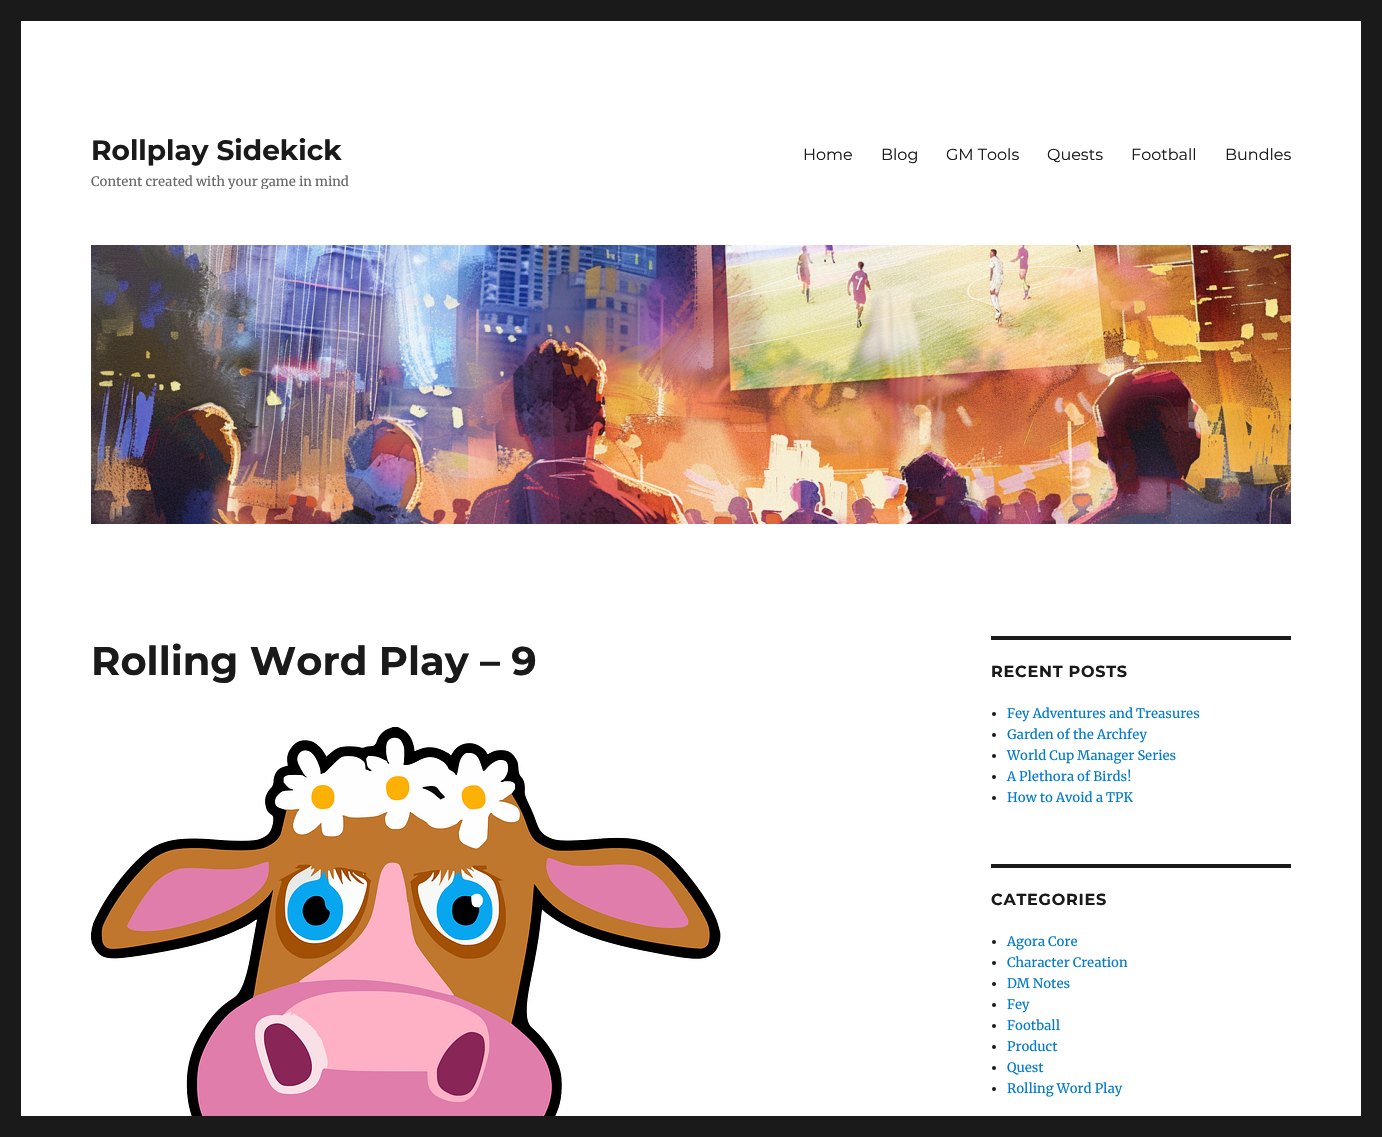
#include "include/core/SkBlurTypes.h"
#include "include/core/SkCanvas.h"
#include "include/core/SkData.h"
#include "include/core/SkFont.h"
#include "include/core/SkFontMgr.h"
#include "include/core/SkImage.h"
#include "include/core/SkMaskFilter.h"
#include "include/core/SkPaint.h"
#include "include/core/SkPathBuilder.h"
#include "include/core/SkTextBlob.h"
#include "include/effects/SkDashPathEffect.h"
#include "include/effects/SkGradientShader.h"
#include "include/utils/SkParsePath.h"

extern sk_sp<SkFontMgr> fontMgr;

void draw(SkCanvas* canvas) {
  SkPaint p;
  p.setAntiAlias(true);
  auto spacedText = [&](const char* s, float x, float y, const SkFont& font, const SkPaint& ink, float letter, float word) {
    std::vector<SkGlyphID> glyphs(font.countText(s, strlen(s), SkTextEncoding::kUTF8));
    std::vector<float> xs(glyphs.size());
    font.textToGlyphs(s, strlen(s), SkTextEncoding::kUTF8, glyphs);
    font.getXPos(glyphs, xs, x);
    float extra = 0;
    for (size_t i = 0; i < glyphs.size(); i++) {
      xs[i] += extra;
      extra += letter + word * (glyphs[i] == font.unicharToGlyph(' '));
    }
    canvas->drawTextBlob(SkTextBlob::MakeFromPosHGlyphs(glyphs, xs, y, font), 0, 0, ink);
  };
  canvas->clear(SkColorSetRGB(26, 26, 26));
  p.setColor(SK_ColorWHITE);
  canvas->drawRect(SkRect::MakeLTRB(21, 21, 1361, 1116), p);
  canvas->drawImageRect(SkImages::DeferredFromEncodedData(SkData::MakeFromFileName("images/1.png")), SkRect::MakeLTRB(91, 245, 1291, 524), SkSamplingOptions());
  canvas->drawImageRect(SkImages::DeferredFromEncodedData(SkData::MakeFromFileName("images/2.png")), SkRect::MakeLTRB(91, 727, 721, 1116), SkSamplingOptions());
  p.setColor(SkColorSetRGB(26, 26, 26));
  canvas->drawRect(SkRect::MakeLTRB(991, 636, 1291, 640), p);
  canvas->drawCircle(994, 714, 2, p);
  canvas->drawCircle(994, 735, 2, p);
  canvas->drawCircle(994, 756, 2, p);
  canvas->drawCircle(994, 777, 2, p);
  canvas->drawCircle(994, 798, 2, p);
  canvas->drawRect(SkRect::MakeLTRB(991, 864, 1291, 868), p);
  canvas->drawCircle(994, 942, 2, p);
  canvas->drawCircle(994, 963, 2, p);
  canvas->drawCircle(994, 984, 2, p);
  canvas->drawCircle(994, 1005, 2, p);
  canvas->drawCircle(994, 1026, 2, p);
  canvas->drawCircle(994, 1047, 2, p);
  canvas->drawCircle(994, 1068, 2, p);
  canvas->drawCircle(994, 1089, 2, p);
  SkFont font1(fontMgr->matchFamilyStyle("Montserrat", SkFontStyle(100, SkFontStyle::kNormal_Width, SkFontStyle::kUpright_Slant)), 28);
  font1.setSubpixel(true);
  canvas->drawString("Rollplay Sidekick", 91, 160, font1, p);
  canvas->save();
  canvas->clipRect(SkRect::MakeLTRB(91, 133, 349, 189));
  SkFont font2(fontMgr->matchFamilyStyle("Merriweather", SkFontStyle::Normal()), 13);
  font2.setSubpixel(true);
  p.setColor(SkColorSetRGB(104, 104, 104));
  canvas->drawString("Content created with your game in mind", 91, 186, font2, p);
  canvas->restore();
  SkFont font3(fontMgr->matchFamilyStyle("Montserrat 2", SkFontStyle(100, SkFontStyle::kNormal_Width, SkFontStyle::kUpright_Slant)), 16);
  font3.setSubpixel(true);
  p.setColor(SkColorSetRGB(26, 26, 26));
  canvas->drawString("Home", 803, 160, font3, p);
  canvas->drawString("Blog", 881, 160, font3, p);
  canvas->drawString("GM Tools", 946, 160, font3, p);
  canvas->drawString("Quests", 1047, 160, font3, p);
  canvas->drawString("Football", 1131, 160, font3, p);
  canvas->drawString("Bundles", 1225, 160, font3, p);
  SkFont font4(fontMgr->matchFamilyStyle("Montserrat", SkFontStyle(100, SkFontStyle::kNormal_Width, SkFontStyle::kUpright_Slant)), 40);
  font4.setSubpixel(true);
  canvas->drawString("Rolling Word Play – 9", 91, 675, font4, p);
  SkFont font5(fontMgr->matchFamilyStyle("Montserrat", SkFontStyle(100, SkFontStyle::kNormal_Width, SkFontStyle::kUpright_Slant)), 16);
  font5.setSubpixel(true);
  spacedText("RECENT POSTS", 991, 677, font5, p, 0.75f, 0);
  p.setColor(SkColorSetRGB(0, 122, 204));
  canvas->drawString("Fey Adventures and Treasures", 1007, 718, font2, p);
  canvas->drawString("Garden of the Archfey", 1007, 739, font2, p);
  canvas->drawString("World Cup Manager Series", 1007, 760, font2, p);
  canvas->drawString("A Plethora of Birds!", 1007, 781, font2, p);
  canvas->drawString("How to Avoid a TPK", 1007, 802, font2, p);
  p.setColor(SkColorSetRGB(26, 26, 26));
  spacedText("CATEGORIES", 991, 905, font5, p, 0.75f, 0);
  p.setColor(SkColorSetRGB(0, 122, 204));
  canvas->drawString("Agora Core", 1007, 946, font2, p);
  canvas->drawString("Character Creation", 1007, 967, font2, p);
  canvas->drawString("DM Notes", 1007, 988, font2, p);
  canvas->drawString("Fey", 1007, 1009, font2, p);
  canvas->drawString("Football", 1007, 1030, font2, p);
  canvas->drawString("Product", 1007, 1051, font2, p);
  canvas->drawString("Quest", 1007, 1072, font2, p);
  canvas->drawString("Rolling Word Play", 1007, 1093, font2, p);
}
